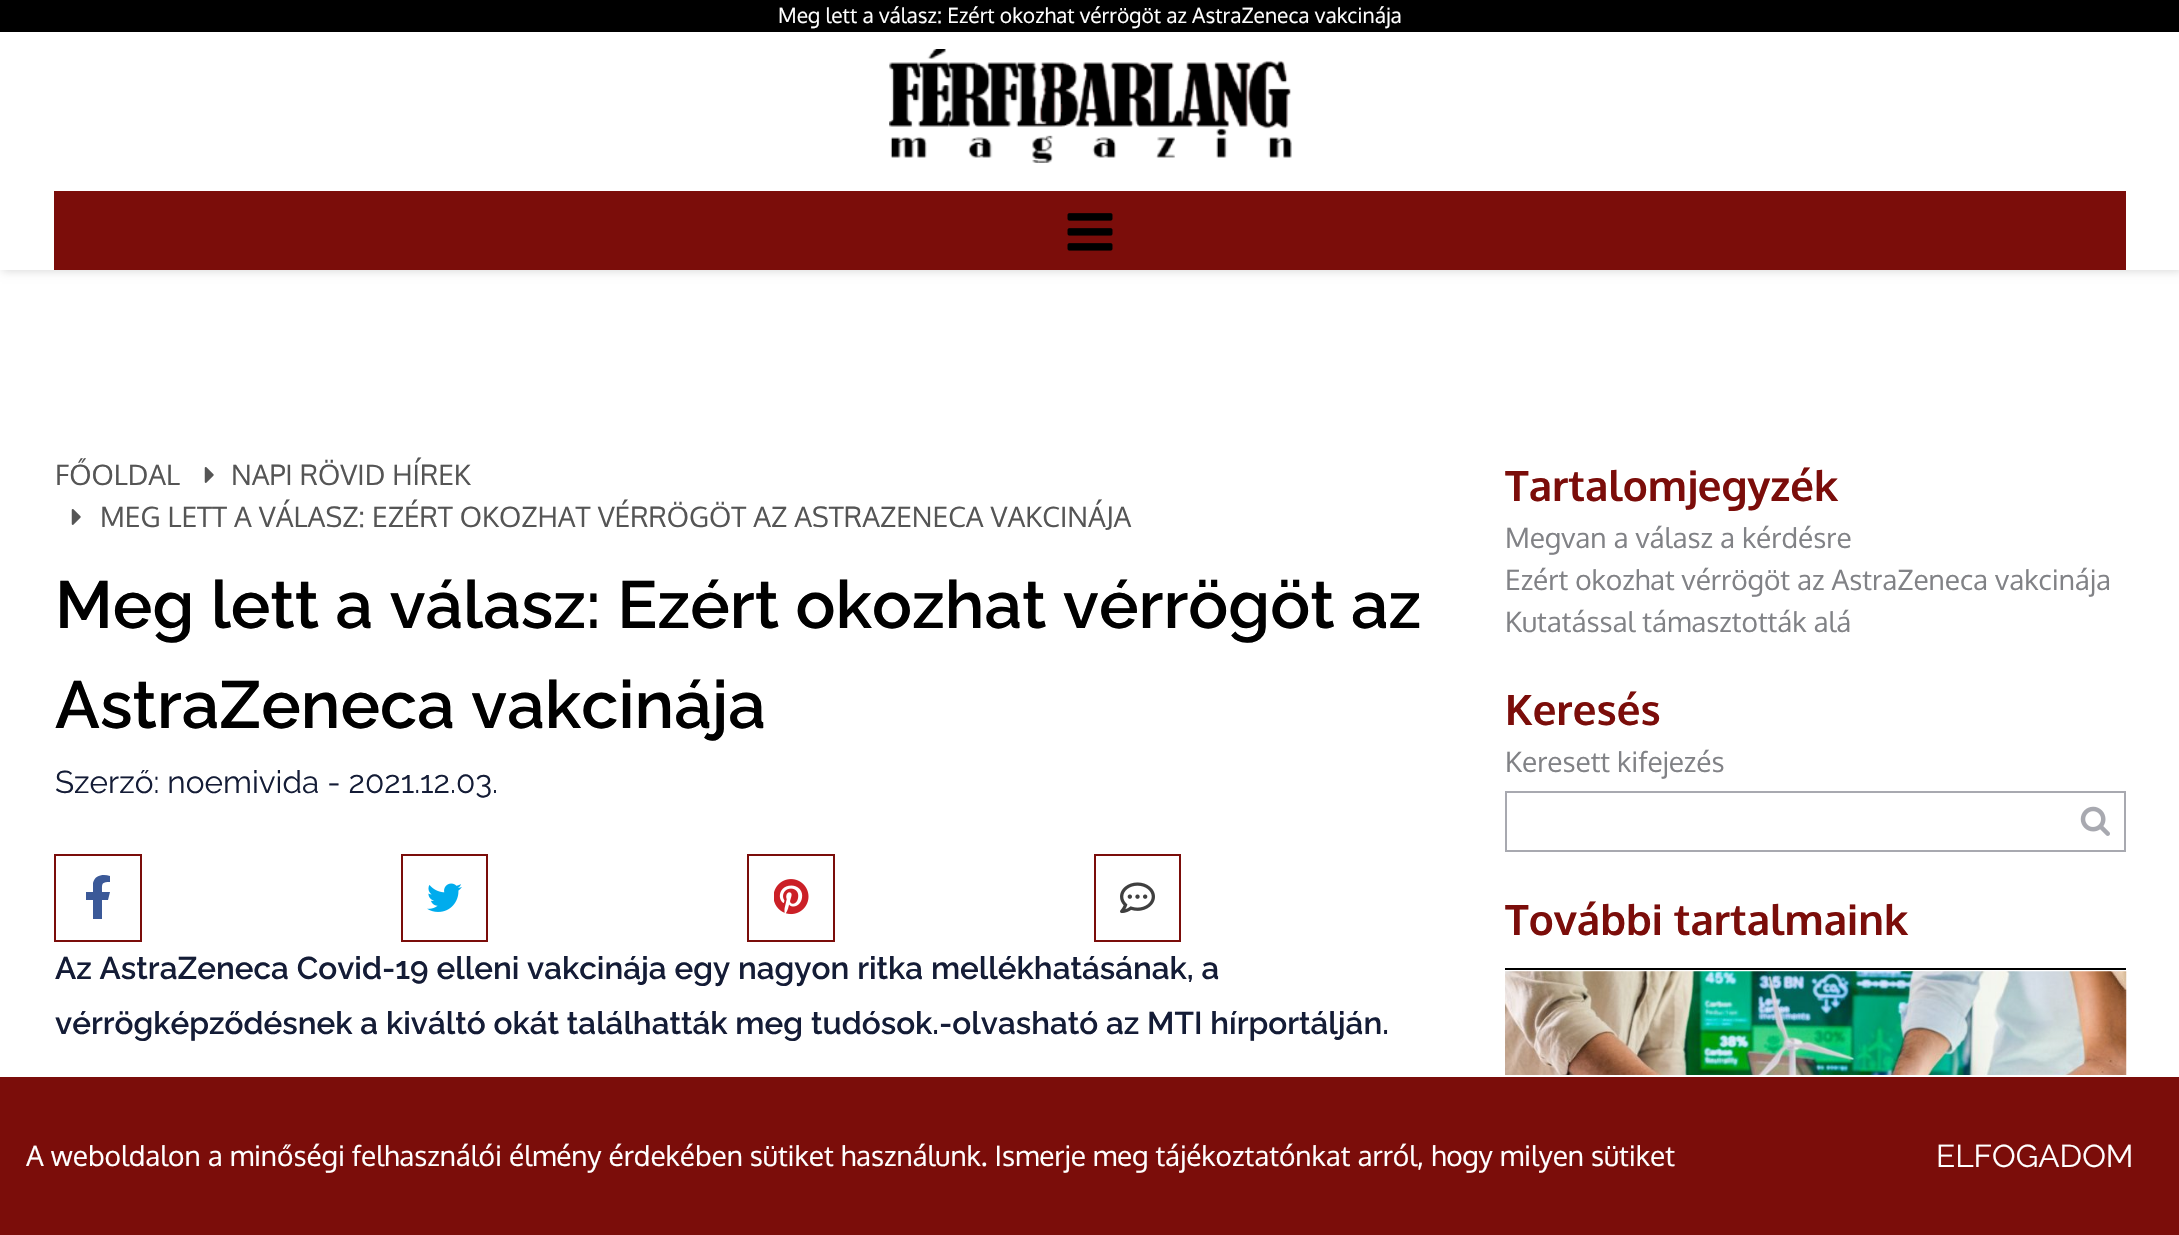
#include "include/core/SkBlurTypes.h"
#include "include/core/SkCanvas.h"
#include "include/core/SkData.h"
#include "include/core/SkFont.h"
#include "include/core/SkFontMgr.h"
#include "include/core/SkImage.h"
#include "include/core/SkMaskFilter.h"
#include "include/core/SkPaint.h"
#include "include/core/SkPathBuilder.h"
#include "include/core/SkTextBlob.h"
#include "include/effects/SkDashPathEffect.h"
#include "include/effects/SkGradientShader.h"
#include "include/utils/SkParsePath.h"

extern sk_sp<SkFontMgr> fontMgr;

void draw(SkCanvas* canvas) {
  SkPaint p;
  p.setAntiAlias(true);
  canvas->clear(SK_ColorWHITE);
  canvas->save();
  canvas->clipPath(SkPathBuilder(SkPathFillType::kEvenOdd).moveTo(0, 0).lineTo(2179, 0).lineTo(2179, 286).lineTo(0, 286).close().moveTo(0, 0).lineTo(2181, 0).lineTo(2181, 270).lineTo(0, 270).close().detach(), true);
  p.setColor(SkColorSetARGB(38, 0, 0, 0));
  p.setMaskFilter(SkMaskFilter::MakeBlur(kNormal_SkBlurStyle, 4.5f));
  canvas->drawRect(SkRect::MakeLTRB(2, 2, 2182, 271), p);
  p.setMaskFilter(nullptr);
  canvas->restore();
  p.setColor(SK_ColorBLACK);
  canvas->drawRect(SkRect::MakeLTRB(0, 0, 2179, 32), p);
  canvas->drawImageRect(SkImages::DeferredFromEncodedData(SkData::MakeFromFileName("images/1.png")), SkRect::MakeLTRB(889, 49, 1292, 163), SkSamplingOptions());
  p.setColor(SkColorSetRGB(123, 13, 10));
  canvas->drawRect(SkRect::MakeLTRB(54, 191, 2126, 270), p);
  canvas->drawImageRect(SkImages::DeferredFromEncodedData(SkData::MakeFromFileName("images/2.png")), SkRect::MakeLTRB(1067, 213, 1113, 251), SkSamplingOptions());
  canvas->drawImageRect(SkImages::DeferredFromEncodedData(SkData::MakeFromFileName("images/3.png")), SkRect::MakeLTRB(204, 467, 214, 483), SkSamplingOptions());
  canvas->drawImageRect(SkImages::DeferredFromEncodedData(SkData::MakeFromFileName("images/3.png")), SkRect::MakeLTRB(71, 509, 81, 525), SkSamplingOptions());
  p.setStyle(SkPaint::kStroke_Style);
  p.setStrokeWidth(2);
  canvas->drawRect(SkRect::MakeLTRB(55, 855, 141, 941), p);
  canvas->save();
  canvas->clipRect(SkRect::MakeLTRB(84, 875, 112, 919));
  p.setStyle(SkPaint::kFill_Style);
  p.setColor(SkColorSetRGB(59, 89, 152));
  canvas->drawPath(SkPathBuilder().moveTo(108, 900).lineTo(110, 892).lineTo(102, 892).cubicTo(102, 884, 101, 882, 110, 882).lineTo(110, 876).cubicTo(103, 874, 95, 875, 93, 883).lineTo(93, 892).lineTo(86, 892).lineTo(86, 900).lineTo(93, 900).lineTo(93, 920).lineTo(102, 920).lineTo(102, 900).close().detach(), p);
  canvas->restore();
  p.setStyle(SkPaint::kStroke_Style);
  p.setColor(SkColorSetRGB(123, 13, 10));
  canvas->drawRect(SkRect::MakeLTRB(402, 855, 487, 941), p);
  canvas->drawImageRect(SkImages::DeferredFromEncodedData(SkData::MakeFromFileName("images/4.png")), SkRect::MakeLTRB(427, 883, 462, 912), SkSamplingOptions());
  canvas->drawRect(SkRect::MakeLTRB(748, 855, 834, 941), p);
  canvas->drawImageRect(SkImages::DeferredFromEncodedData(SkData::MakeFromFileName("images/5.png")), SkRect::MakeLTRB(774, 879, 809, 915), SkSamplingOptions());
  canvas->drawRect(SkRect::MakeLTRB(1095, 855, 1180, 941), p);
  canvas->drawImageRect(SkImages::DeferredFromEncodedData(SkData::MakeFromFileName("images/6.png")), SkRect::MakeLTRB(1120, 882, 1155, 914), SkSamplingOptions());
  p.setColor(SkColorSetRGB(168, 169, 176));
  canvas->drawRect(SkRect::MakeLTRB(1506, 792, 2125, 851), p);
  canvas->drawImageRect(SkImages::DeferredFromEncodedData(SkData::MakeFromFileName("images/7.png")), SkRect::MakeLTRB(2080, 806, 2110, 836), SkSamplingOptions());
  p.setStyle(SkPaint::kFill_Style);
  p.setColor(SK_ColorBLACK);
  canvas->drawRect(SkRect::MakeLTRB(1505, 968, 2126, 970), p);
  canvas->drawImageRect(SkImages::DeferredFromEncodedData(SkData::MakeFromFileName("images/8.png")), SkRect::MakeLTRB(1505, 971, 2127, 1075), SkSamplingOptions());
  p.setColor(SkColorSetRGB(123, 13, 10));
  canvas->drawRect(SkRect::MakeLTRB(0, 1077, 2179, 1235), p);
  SkFont font1(fontMgr->matchFamilyStyle("Oxygen", SkFontStyle::Normal()), 21);
  font1.setSubpixel(true);
  p.setColor(SK_ColorWHITE);
  canvas->drawString("Meg lett a válasz: Ezért okozhat vérrögöt az AstraZeneca vakcinája", 778, 23, font1, p);
  SkFont font2(fontMgr->matchFamilyStyle("Oxygen", SkFontStyle::Normal()), 28);
  font2.setSubpixel(true);
  p.setColor(SkColorSetRGB(85, 85, 85));
  canvas->drawString("FŐOLDAL", 55, 485, font2, p);
  canvas->drawString("NAPI RÖVID HÍREK", 231, 485, font2, p);
  canvas->drawString("MEG LETT A VÁLASZ: EZÉRT OKOZHAT VÉRRÖGÖT AZ ASTRAZENECA VAKCINÁJA", 100, 527, font2, p);
  SkFont font3(fontMgr->matchFamilyStyle("Raleway", SkFontStyle(600, SkFontStyle::kNormal_Width, SkFontStyle::kUpright_Slant)), 66.5f);
  font3.setSubpixel(true);
  p.setColor(SK_ColorBLACK);
  canvas->drawString("Meg lett a válasz: Ezért okozhat vérrögöt az", 55, 628, font3, p);
  canvas->drawString("AstraZeneca vakcinája", 55, 728, font3, p);
  SkFont font4(fontMgr->matchFamilyStyle("Raleway", SkFontStyle::Normal()), 31.5f);
  font4.setSubpixel(true);
  p.setColor(SkColorSetRGB(20, 28, 54));
  canvas->drawString("Szerző: noemivida - 2021.12.03.", 55, 793, font4, p);
  SkFont font5(fontMgr->matchFamilyStyle("Raleway", SkFontStyle(600, SkFontStyle::kNormal_Width, SkFontStyle::kUpright_Slant)), 31.5f);
  font5.setSubpixel(true);
  canvas->drawString("Az AstraZeneca Covid-19 elleni vakcinája egy nagyon ritka mellékhatásának, a", 55, 979, font5, p);
  canvas->drawString("vérrögképződésnek a kiváltó okát találhatták meg tudósok.-olvasható az MTI hírportálján.", 55, 1034, font5, p);
  SkFont font6(fontMgr->matchFamilyStyle("Oxygen", SkFontStyle::Bold()), 42);
  font6.setSubpixel(true);
  p.setColor(SkColorSetRGB(123, 13, 10));
  canvas->drawString("Tartalomjegyzék", 1505, 501, font6, p);
  p.setColor(SkColorSetRGB(129, 130, 134));
  canvas->drawString("Megvan a válasz a kérdésre", 1505, 548, font2, p);
  canvas->drawString("Ezért okozhat vérrögöt az AstraZeneca vakcinája", 1505, 590, font2, p);
  canvas->drawString("Kutatással támasztották alá", 1505, 632, font2, p);
  p.setColor(SkColorSetRGB(123, 13, 10));
  canvas->drawString("Keresés", 1505, 725, font6, p);
  p.setColor(SkColorSetRGB(129, 130, 134));
  canvas->drawString("Keresett kifejezés", 1505, 772, font2, p);
  p.setColor(SkColorSetRGB(123, 13, 10));
  canvas->drawString("További tartalmaink", 1505, 935, font6, p);
  p.setColor(SK_ColorWHITE);
  canvas->drawString("A weboldalon a minőségi felhasználói élmény érdekében sütiket használunk. Ismerje meg tájékoztatónkat arról, hogy milyen sütiket", 26, 1166, font2, p);
  canvas->drawString("ELFOGADOM", 1936, 1167, font4, p);
}
